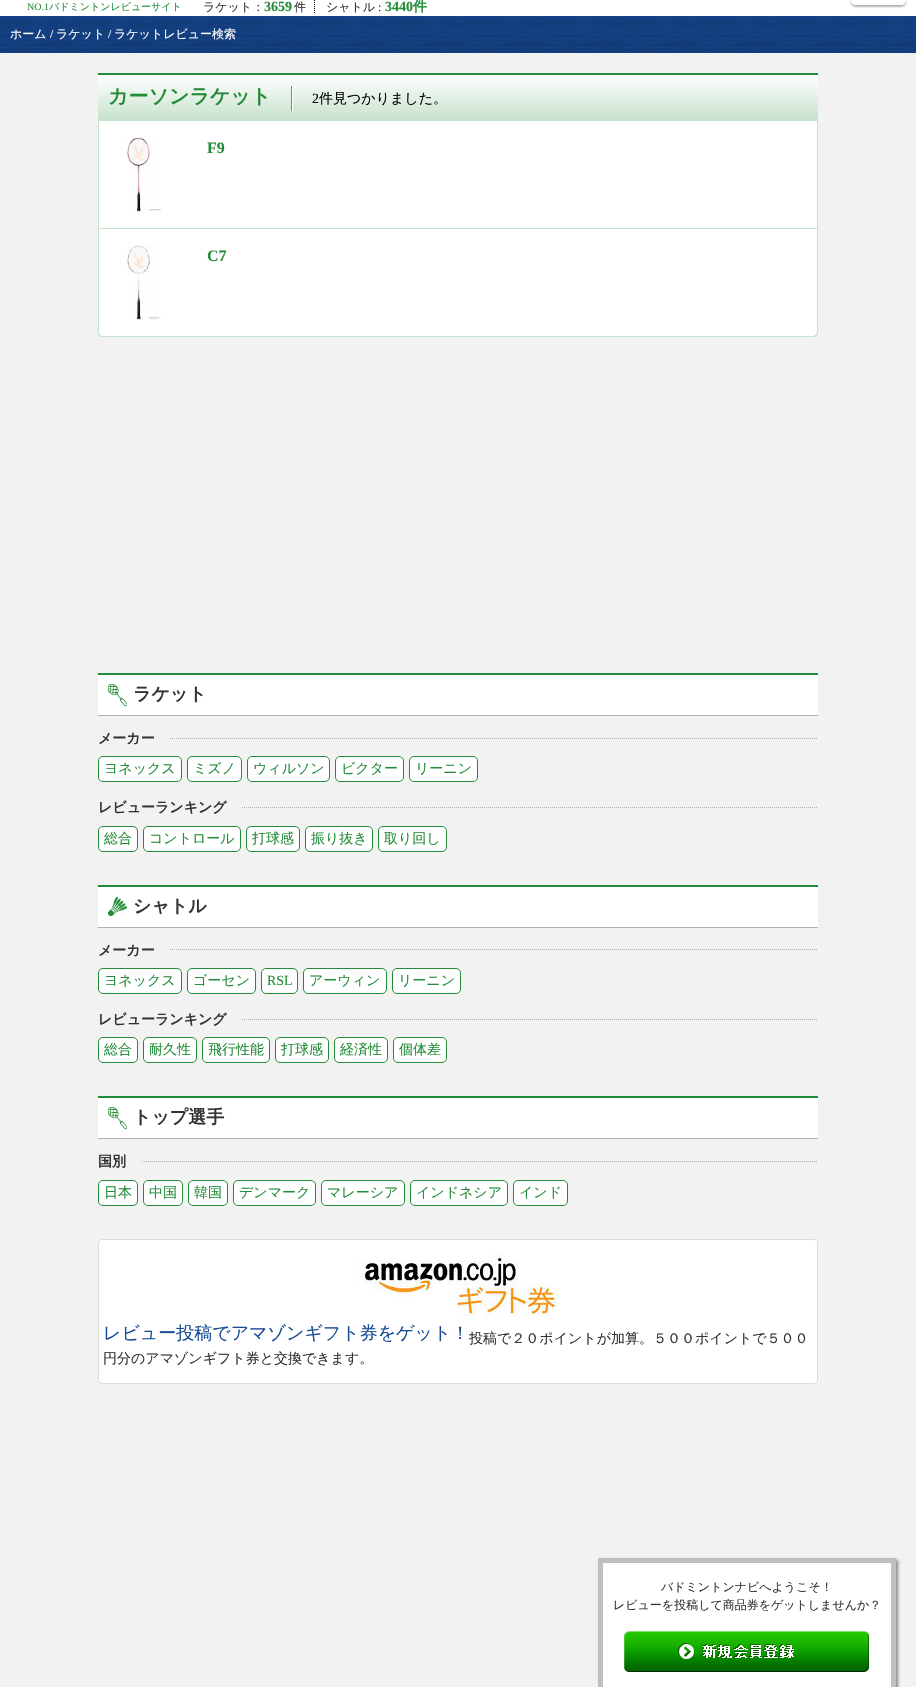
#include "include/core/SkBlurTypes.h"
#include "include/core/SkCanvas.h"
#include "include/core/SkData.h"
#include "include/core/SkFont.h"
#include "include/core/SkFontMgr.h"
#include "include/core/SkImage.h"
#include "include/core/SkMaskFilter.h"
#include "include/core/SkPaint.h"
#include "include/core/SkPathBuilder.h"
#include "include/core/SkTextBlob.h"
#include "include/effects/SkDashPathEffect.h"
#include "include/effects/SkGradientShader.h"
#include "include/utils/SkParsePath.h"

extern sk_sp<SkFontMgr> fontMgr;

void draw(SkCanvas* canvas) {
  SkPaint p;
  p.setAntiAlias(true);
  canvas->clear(SK_ColorWHITE);
  p.setStyle(SkPaint::kStroke_Style);
  p.setStrokeWidth(1);
  p.setColor(SK_ColorBLACK);
  p.setPathEffect(SkDashPathEffect::Make({{1, 1}}, 0));
  canvas->drawPath(SkPathBuilder().moveTo(314.5f, 0).lineTo(314.5f, 14).detach(), p);
  p.setPathEffect(nullptr);
  canvas->save();
  canvas->clipPath(SkPathBuilder(SkPathFillType::kEvenOdd).moveTo(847, 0).lineTo(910, 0).lineTo(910, 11).lineTo(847, 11).close().moveTo(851, -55).lineTo(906, -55).lineTo(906, 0).cubicTo(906, 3, 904, 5, 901, 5).lineTo(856, 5).cubicTo(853, 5, 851, 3, 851, 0).close().detach(), true);
  p.setStyle(SkPaint::kFill_Style);
  p.setColor(SkColorSetRGB(177, 177, 177));
  p.setMaskFilter(SkMaskFilter::MakeBlur(kNormal_SkBlurStyle, 1));
  canvas->drawRoundRect(SkRect::MakeLTRB(851, -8, 906, 7), 5, 5, p);
  p.setMaskFilter(nullptr);
  canvas->restore();
  p.setColor(SkColorSetRGB(242, 242, 242));
  canvas->drawRect(SkRect::MakeLTRB(0, 53, 916, 1687), p);
  canvas->drawImageRect(SkImages::DeferredFromEncodedData(SkData::MakeFromFileName("images/1.png")), SkRect::MakeLTRB(0, 16, 916, 53), SkSamplingOptions());
  {
    const SkColor colors[] = {SK_ColorWHITE, SkColorSetRGB(198, 225, 203)};
    const float stops[] = {0, 1};
    const SkPoint ends[] = {{98, 75}, {98, 121}};
    p.setShader(SkGradientShader::MakeLinear(ends, colors, stops, 2, SkTileMode::kClamp));
    p.setAlpha(255);
  }
  canvas->drawRect(SkRect::MakeLTRB(98, 75, 818, 121), p);
  p.setShader(nullptr);
  p.setColor(SkColorSetRGB(35, 140, 56));
  canvas->drawRect(SkRect::MakeLTRB(98, 73, 818, 75), p);
  p.setColor(SkColorSetRGB(35, 185, 101));
  canvas->drawRect(SkRect::MakeLTRB(291, 86, 292, 111), p);
  p.setColor(SK_ColorWHITE);
  canvas->drawRect(SkRect::MakeLTRB(292, 86, 293, 111), p);
  canvas->drawPath(SkPathBuilder().moveTo(98, 121).lineTo(818, 121).lineTo(818, 332).cubicTo(818, 335, 816, 337, 813, 337).lineTo(103, 337).cubicTo(100, 337, 98, 335, 98, 332).close().detach(), p);
  p.setColor(SkColorSetRGB(198, 225, 203));
  canvas->drawPath(SkPathBuilder(SkPathFillType::kEvenOdd).moveTo(98, 121).lineTo(818, 121).lineTo(818, 332).cubicTo(818, 335, 816, 337, 813, 337).lineTo(103, 337).cubicTo(100, 337, 98, 335, 98, 332).close().moveTo(99, 121).lineTo(817, 121).lineTo(817, 332).cubicTo(817, 334, 815, 336, 813, 336).lineTo(103, 336).cubicTo(101, 336, 99, 334, 99, 332).close().detach(), p);
  canvas->drawImageRect(SkImages::DeferredFromEncodedData(SkData::MakeFromFileName("images/2.png")), SkRect::MakeLTRB(127, 137, 161, 212), SkSamplingOptions());
  canvas->drawRect(SkRect::MakeLTRB(99, 228, 817, 229), p);
  canvas->drawImageRect(SkImages::DeferredFromEncodedData(SkData::MakeFromFileName("images/3.png")), SkRect::MakeLTRB(127, 245, 161, 320), SkSamplingOptions());
  p.setColor(SK_ColorWHITE);
  canvas->drawRect(SkRect::MakeLTRB(98, 675, 818, 715), p);
  canvas->drawImageRect(SkImages::DeferredFromEncodedData(SkData::MakeFromFileName("images/4.png")), SkRect::MakeLTRB(108, 684, 127, 707), SkSamplingOptions());
  p.setColor(SkColorSetRGB(35, 140, 56));
  canvas->drawRect(SkRect::MakeLTRB(98, 673, 818, 675), p);
  p.setColor(SkColorSetRGB(177, 177, 177));
  canvas->drawRect(SkRect::MakeLTRB(98, 715, 818, 716), p);
  p.setStyle(SkPaint::kStroke_Style);
  p.setPathEffect(SkDashPathEffect::Make({{1, 1}}, 0));
  canvas->drawPath(SkPathBuilder().moveTo(98, 738.5f).lineTo(818, 738.5f).detach(), p);
  p.setPathEffect(nullptr);
  p.setStyle(SkPaint::kFill_Style);
  p.setColor(SkColorSetRGB(242, 242, 242));
  canvas->drawRect(SkRect::MakeLTRB(98, 738, 169, 739), p);
  p.setColor(SK_ColorWHITE);
  canvas->drawRoundRect(SkRect::MakeLTRB(98.5f, 756.5f, 181.5f, 781.5f), 4.5f, 4.5f, p);
  p.setStyle(SkPaint::kStroke_Style);
  p.setColor(SkColorSetRGB(35, 140, 56));
  canvas->drawRoundRect(SkRect::MakeLTRB(98.5f, 756.5f, 181.5f, 781.5f), 4.5f, 4.5f, p);
  p.setStyle(SkPaint::kFill_Style);
  p.setColor(SK_ColorWHITE);
  canvas->drawRoundRect(SkRect::MakeLTRB(187.5f, 756.5f, 241.5f, 781.5f), 4.5f, 4.5f, p);
  p.setStyle(SkPaint::kStroke_Style);
  p.setColor(SkColorSetRGB(35, 140, 56));
  canvas->drawRoundRect(SkRect::MakeLTRB(187.5f, 756.5f, 241.5f, 781.5f), 4.5f, 4.5f, p);
  p.setStyle(SkPaint::kFill_Style);
  p.setColor(SK_ColorWHITE);
  canvas->drawRoundRect(SkRect::MakeLTRB(247.5f, 756.5f, 329.5f, 781.5f), 4.5f, 4.5f, p);
  p.setStyle(SkPaint::kStroke_Style);
  p.setColor(SkColorSetRGB(35, 140, 56));
  canvas->drawRoundRect(SkRect::MakeLTRB(247.5f, 756.5f, 329.5f, 781.5f), 4.5f, 4.5f, p);
  p.setStyle(SkPaint::kFill_Style);
  p.setColor(SK_ColorWHITE);
  canvas->drawRoundRect(SkRect::MakeLTRB(335.5f, 756.5f, 403.5f, 781.5f), 4.5f, 4.5f, p);
  p.setStyle(SkPaint::kStroke_Style);
  p.setColor(SkColorSetRGB(35, 140, 56));
  canvas->drawRoundRect(SkRect::MakeLTRB(335.5f, 756.5f, 403.5f, 781.5f), 4.5f, 4.5f, p);
  p.setStyle(SkPaint::kFill_Style);
  p.setColor(SK_ColorWHITE);
  canvas->drawRoundRect(SkRect::MakeLTRB(409.5f, 756.5f, 477.5f, 781.5f), 4.5f, 4.5f, p);
  p.setStyle(SkPaint::kStroke_Style);
  p.setColor(SkColorSetRGB(35, 140, 56));
  canvas->drawRoundRect(SkRect::MakeLTRB(409.5f, 756.5f, 477.5f, 781.5f), 4.5f, 4.5f, p);
  p.setColor(SkColorSetRGB(177, 177, 177));
  p.setPathEffect(SkDashPathEffect::Make({{1, 1}}, 0));
  canvas->drawPath(SkPathBuilder().moveTo(98, 807.5f).lineTo(818, 807.5f).detach(), p);
  p.setPathEffect(nullptr);
  p.setStyle(SkPaint::kFill_Style);
  p.setColor(SkColorSetRGB(242, 242, 242));
  canvas->drawRect(SkRect::MakeLTRB(98, 807, 241, 808), p);
  p.setColor(SK_ColorWHITE);
  canvas->drawRoundRect(SkRect::MakeLTRB(98.5f, 826.5f, 137.5f, 851.5f), 4.5f, 4.5f, p);
  p.setStyle(SkPaint::kStroke_Style);
  p.setColor(SkColorSetRGB(35, 140, 56));
  canvas->drawRoundRect(SkRect::MakeLTRB(98.5f, 826.5f, 137.5f, 851.5f), 4.5f, 4.5f, p);
  p.setStyle(SkPaint::kFill_Style);
  p.setColor(SK_ColorWHITE);
  canvas->drawRoundRect(SkRect::MakeLTRB(143.5f, 826.5f, 240.5f, 851.5f), 4.5f, 4.5f, p);
  p.setStyle(SkPaint::kStroke_Style);
  p.setColor(SkColorSetRGB(35, 140, 56));
  canvas->drawRoundRect(SkRect::MakeLTRB(143.5f, 826.5f, 240.5f, 851.5f), 4.5f, 4.5f, p);
  p.setStyle(SkPaint::kFill_Style);
  p.setColor(SK_ColorWHITE);
  canvas->drawRoundRect(SkRect::MakeLTRB(246.5f, 826.5f, 299.5f, 851.5f), 4.5f, 4.5f, p);
  p.setStyle(SkPaint::kStroke_Style);
  p.setColor(SkColorSetRGB(35, 140, 56));
  canvas->drawRoundRect(SkRect::MakeLTRB(246.5f, 826.5f, 299.5f, 851.5f), 4.5f, 4.5f, p);
  p.setStyle(SkPaint::kFill_Style);
  p.setColor(SK_ColorWHITE);
  canvas->drawRoundRect(SkRect::MakeLTRB(305.5f, 826.5f, 372.5f, 851.5f), 4.5f, 4.5f, p);
  p.setStyle(SkPaint::kStroke_Style);
  p.setColor(SkColorSetRGB(35, 140, 56));
  canvas->drawRoundRect(SkRect::MakeLTRB(305.5f, 826.5f, 372.5f, 851.5f), 4.5f, 4.5f, p);
  p.setStyle(SkPaint::kFill_Style);
  p.setColor(SK_ColorWHITE);
  canvas->drawRoundRect(SkRect::MakeLTRB(378.5f, 826.5f, 446.5f, 851.5f), 4.5f, 4.5f, p);
  p.setStyle(SkPaint::kStroke_Style);
  p.setColor(SkColorSetRGB(35, 140, 56));
  canvas->drawRoundRect(SkRect::MakeLTRB(378.5f, 826.5f, 446.5f, 851.5f), 4.5f, 4.5f, p);
  p.setStyle(SkPaint::kFill_Style);
  p.setColor(SK_ColorWHITE);
  canvas->drawRect(SkRect::MakeLTRB(98, 887, 818, 927), p);
  canvas->drawImageRect(SkImages::DeferredFromEncodedData(SkData::MakeFromFileName("images/5.png")), SkRect::MakeLTRB(108, 897, 127, 916), SkSamplingOptions());
  p.setColor(SkColorSetRGB(35, 140, 56));
  canvas->drawRect(SkRect::MakeLTRB(98, 885, 818, 887), p);
  p.setColor(SkColorSetRGB(177, 177, 177));
  canvas->drawRect(SkRect::MakeLTRB(98, 927, 818, 928), p);
  p.setStyle(SkPaint::kStroke_Style);
  p.setPathEffect(SkDashPathEffect::Make({{1, 1}}, 0));
  canvas->drawPath(SkPathBuilder().moveTo(98, 949.5f).lineTo(818, 949.5f).detach(), p);
  p.setPathEffect(nullptr);
  p.setStyle(SkPaint::kFill_Style);
  p.setColor(SkColorSetRGB(242, 242, 242));
  canvas->drawRect(SkRect::MakeLTRB(98, 949, 169, 950), p);
  p.setColor(SK_ColorWHITE);
  canvas->drawRoundRect(SkRect::MakeLTRB(98.5f, 968.5f, 181.5f, 993.5f), 4.5f, 4.5f, p);
  p.setStyle(SkPaint::kStroke_Style);
  p.setColor(SkColorSetRGB(35, 140, 56));
  canvas->drawRoundRect(SkRect::MakeLTRB(98.5f, 968.5f, 181.5f, 993.5f), 4.5f, 4.5f, p);
  p.setStyle(SkPaint::kFill_Style);
  p.setColor(SK_ColorWHITE);
  canvas->drawRoundRect(SkRect::MakeLTRB(187.5f, 968.5f, 255.5f, 993.5f), 4.5f, 4.5f, p);
  p.setStyle(SkPaint::kStroke_Style);
  p.setColor(SkColorSetRGB(35, 140, 56));
  canvas->drawRoundRect(SkRect::MakeLTRB(187.5f, 968.5f, 255.5f, 993.5f), 4.5f, 4.5f, p);
  p.setStyle(SkPaint::kFill_Style);
  p.setColor(SK_ColorWHITE);
  canvas->drawRoundRect(SkRect::MakeLTRB(261.5f, 968.5f, 297.5f, 993.5f), 4.5f, 4.5f, p);
  p.setStyle(SkPaint::kStroke_Style);
  p.setColor(SkColorSetRGB(35, 140, 56));
  canvas->drawRoundRect(SkRect::MakeLTRB(261.5f, 968.5f, 297.5f, 993.5f), 4.5f, 4.5f, p);
  p.setStyle(SkPaint::kFill_Style);
  p.setColor(SK_ColorWHITE);
  canvas->drawRoundRect(SkRect::MakeLTRB(303.5f, 968.5f, 386.5f, 993.5f), 4.5f, 4.5f, p);
  p.setStyle(SkPaint::kStroke_Style);
  p.setColor(SkColorSetRGB(35, 140, 56));
  canvas->drawRoundRect(SkRect::MakeLTRB(303.5f, 968.5f, 386.5f, 993.5f), 4.5f, 4.5f, p);
  p.setStyle(SkPaint::kFill_Style);
  p.setColor(SK_ColorWHITE);
  canvas->drawRoundRect(SkRect::MakeLTRB(392.5f, 968.5f, 460.5f, 993.5f), 4.5f, 4.5f, p);
  p.setStyle(SkPaint::kStroke_Style);
  p.setColor(SkColorSetRGB(35, 140, 56));
  canvas->drawRoundRect(SkRect::MakeLTRB(392.5f, 968.5f, 460.5f, 993.5f), 4.5f, 4.5f, p);
  p.setColor(SkColorSetRGB(177, 177, 177));
  p.setPathEffect(SkDashPathEffect::Make({{1, 1}}, 0));
  canvas->drawPath(SkPathBuilder().moveTo(98, 1019.5f).lineTo(818, 1019.5f).detach(), p);
  p.setPathEffect(nullptr);
  p.setStyle(SkPaint::kFill_Style);
  p.setColor(SkColorSetRGB(242, 242, 242));
  canvas->drawRect(SkRect::MakeLTRB(98, 1019, 241, 1020), p);
  p.setColor(SK_ColorWHITE);
  canvas->drawRoundRect(SkRect::MakeLTRB(98.5f, 1037.5f, 137.5f, 1062.5f), 4.5f, 4.5f, p);
  p.setStyle(SkPaint::kStroke_Style);
  p.setColor(SkColorSetRGB(35, 140, 56));
  canvas->drawRoundRect(SkRect::MakeLTRB(98.5f, 1037.5f, 137.5f, 1062.5f), 4.5f, 4.5f, p);
  p.setStyle(SkPaint::kFill_Style);
  p.setColor(SK_ColorWHITE);
  canvas->drawRoundRect(SkRect::MakeLTRB(143.5f, 1037.5f, 196.5f, 1062.5f), 4.5f, 4.5f, p);
  p.setStyle(SkPaint::kStroke_Style);
  p.setColor(SkColorSetRGB(35, 140, 56));
  canvas->drawRoundRect(SkRect::MakeLTRB(143.5f, 1037.5f, 196.5f, 1062.5f), 4.5f, 4.5f, p);
  p.setStyle(SkPaint::kFill_Style);
  p.setColor(SK_ColorWHITE);
  canvas->drawRoundRect(SkRect::MakeLTRB(202.5f, 1037.5f, 269.5f, 1062.5f), 4.5f, 4.5f, p);
  p.setStyle(SkPaint::kStroke_Style);
  p.setColor(SkColorSetRGB(35, 140, 56));
  canvas->drawRoundRect(SkRect::MakeLTRB(202.5f, 1037.5f, 269.5f, 1062.5f), 4.5f, 4.5f, p);
  p.setStyle(SkPaint::kFill_Style);
  p.setColor(SK_ColorWHITE);
  canvas->drawRoundRect(SkRect::MakeLTRB(275.5f, 1037.5f, 328.5f, 1062.5f), 4.5f, 4.5f, p);
  p.setStyle(SkPaint::kStroke_Style);
  p.setColor(SkColorSetRGB(35, 140, 56));
  canvas->drawRoundRect(SkRect::MakeLTRB(275.5f, 1037.5f, 328.5f, 1062.5f), 4.5f, 4.5f, p);
  p.setStyle(SkPaint::kFill_Style);
  p.setColor(SK_ColorWHITE);
  canvas->drawRoundRect(SkRect::MakeLTRB(334.5f, 1037.5f, 387.5f, 1062.5f), 4.5f, 4.5f, p);
  p.setStyle(SkPaint::kStroke_Style);
  p.setColor(SkColorSetRGB(35, 140, 56));
  canvas->drawRoundRect(SkRect::MakeLTRB(334.5f, 1037.5f, 387.5f, 1062.5f), 4.5f, 4.5f, p);
  p.setStyle(SkPaint::kFill_Style);
  p.setColor(SK_ColorWHITE);
  canvas->drawRoundRect(SkRect::MakeLTRB(393.5f, 1037.5f, 446.5f, 1062.5f), 4.5f, 4.5f, p);
  p.setStyle(SkPaint::kStroke_Style);
  p.setColor(SkColorSetRGB(35, 140, 56));
  canvas->drawRoundRect(SkRect::MakeLTRB(393.5f, 1037.5f, 446.5f, 1062.5f), 4.5f, 4.5f, p);
  p.setStyle(SkPaint::kFill_Style);
  p.setColor(SK_ColorWHITE);
  canvas->drawRect(SkRect::MakeLTRB(98, 1098, 818, 1138), p);
  canvas->drawImageRect(SkImages::DeferredFromEncodedData(SkData::MakeFromFileName("images/4.png")), SkRect::MakeLTRB(108, 1107, 127, 1130), SkSamplingOptions());
  p.setColor(SkColorSetRGB(35, 140, 56));
  canvas->drawRect(SkRect::MakeLTRB(98, 1096, 818, 1098), p);
  p.setColor(SkColorSetRGB(177, 177, 177));
  canvas->drawRect(SkRect::MakeLTRB(98, 1138, 818, 1139), p);
  p.setStyle(SkPaint::kStroke_Style);
  p.setPathEffect(SkDashPathEffect::Make({{1, 1}}, 0));
  canvas->drawPath(SkPathBuilder().moveTo(98, 1161.5f).lineTo(818, 1161.5f).detach(), p);
  p.setPathEffect(nullptr);
  p.setStyle(SkPaint::kFill_Style);
  p.setColor(SkColorSetRGB(242, 242, 242));
  canvas->drawRect(SkRect::MakeLTRB(98, 1161, 141, 1162), p);
  p.setColor(SK_ColorWHITE);
  canvas->drawRoundRect(SkRect::MakeLTRB(98.5f, 1180.5f, 137.5f, 1205.5f), 4.5f, 4.5f, p);
  p.setStyle(SkPaint::kStroke_Style);
  p.setColor(SkColorSetRGB(35, 140, 56));
  canvas->drawRoundRect(SkRect::MakeLTRB(98.5f, 1180.5f, 137.5f, 1205.5f), 4.5f, 4.5f, p);
  p.setStyle(SkPaint::kFill_Style);
  p.setColor(SK_ColorWHITE);
  canvas->drawRoundRect(SkRect::MakeLTRB(143.5f, 1180.5f, 182.5f, 1205.5f), 4.5f, 4.5f, p);
  p.setStyle(SkPaint::kStroke_Style);
  p.setColor(SkColorSetRGB(35, 140, 56));
  canvas->drawRoundRect(SkRect::MakeLTRB(143.5f, 1180.5f, 182.5f, 1205.5f), 4.5f, 4.5f, p);
  p.setStyle(SkPaint::kFill_Style);
  p.setColor(SK_ColorWHITE);
  canvas->drawRoundRect(SkRect::MakeLTRB(188.5f, 1180.5f, 227.5f, 1205.5f), 4.5f, 4.5f, p);
  p.setStyle(SkPaint::kStroke_Style);
  p.setColor(SkColorSetRGB(35, 140, 56));
  canvas->drawRoundRect(SkRect::MakeLTRB(188.5f, 1180.5f, 227.5f, 1205.5f), 4.5f, 4.5f, p);
  p.setStyle(SkPaint::kFill_Style);
  p.setColor(SK_ColorWHITE);
  canvas->drawRoundRect(SkRect::MakeLTRB(233.5f, 1180.5f, 315.5f, 1205.5f), 4.5f, 4.5f, p);
  p.setStyle(SkPaint::kStroke_Style);
  p.setColor(SkColorSetRGB(35, 140, 56));
  canvas->drawRoundRect(SkRect::MakeLTRB(233.5f, 1180.5f, 315.5f, 1205.5f), 4.5f, 4.5f, p);
  p.setStyle(SkPaint::kFill_Style);
  p.setColor(SK_ColorWHITE);
  canvas->drawRoundRect(SkRect::MakeLTRB(321.5f, 1180.5f, 404.5f, 1205.5f), 4.5f, 4.5f, p);
  p.setStyle(SkPaint::kStroke_Style);
  p.setColor(SkColorSetRGB(35, 140, 56));
  canvas->drawRoundRect(SkRect::MakeLTRB(321.5f, 1180.5f, 404.5f, 1205.5f), 4.5f, 4.5f, p);
  p.setStyle(SkPaint::kFill_Style);
  p.setColor(SK_ColorWHITE);
  canvas->drawRoundRect(SkRect::MakeLTRB(410.5f, 1180.5f, 507.5f, 1205.5f), 4.5f, 4.5f, p);
  p.setStyle(SkPaint::kStroke_Style);
  p.setColor(SkColorSetRGB(35, 140, 56));
  canvas->drawRoundRect(SkRect::MakeLTRB(410.5f, 1180.5f, 507.5f, 1205.5f), 4.5f, 4.5f, p);
  p.setStyle(SkPaint::kFill_Style);
  p.setColor(SK_ColorWHITE);
  canvas->drawRoundRect(SkRect::MakeLTRB(513.5f, 1180.5f, 567.5f, 1205.5f), 4.5f, 4.5f, p);
  p.setStyle(SkPaint::kStroke_Style);
  p.setColor(SkColorSetRGB(35, 140, 56));
  canvas->drawRoundRect(SkRect::MakeLTRB(513.5f, 1180.5f, 567.5f, 1205.5f), 4.5f, 4.5f, p);
  p.setStyle(SkPaint::kFill_Style);
  p.setColor(SK_ColorWHITE);
  canvas->drawRoundRect(SkRect::MakeLTRB(98.5f, 1239.5f, 817.5f, 1383.5f), 3.5f, 3.5f, p);
  p.setStyle(SkPaint::kStroke_Style);
  p.setColor(SkColorSetRGB(221, 221, 221));
  canvas->drawRoundRect(SkRect::MakeLTRB(98.5f, 1239.5f, 817.5f, 1383.5f), 3.5f, 3.5f, p);
  canvas->drawImageRect(SkImages::DeferredFromEncodedData(SkData::MakeFromFileName("images/6.png")), SkRect::MakeLTRB(358, 1253, 558, 1316), SkSamplingOptions());
  p.setStyle(SkPaint::kFill_Style);
  p.setColor(SkColorSetARGB(112, 4, 0, 0));
  p.setMaskFilter(SkMaskFilter::MakeBlur(kNormal_SkBlurStyle, 1.5f));
  canvas->drawRect(SkRect::MakeLTRB(600, 1560, 898, 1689), p);
  p.setMaskFilter(nullptr);
  p.setColor(SK_ColorWHITE);
  canvas->drawRect(SkRect::MakeLTRB(603, 1563, 891, 1687), p);
  p.setColor(SkColorSetRGB(191, 191, 191));
  canvas->drawRect(SkRect::MakeLTRB(598, 1558, 896, 1563), p);
  canvas->drawRect(SkRect::MakeLTRB(891, 1558, 896, 1687), p);
  canvas->drawRect(SkRect::MakeLTRB(598, 1558, 603, 1687), p);
  canvas->drawImageRect(SkImages::DeferredFromEncodedData(SkData::MakeFromFileName("images/7.png")), SkRect::MakeLTRB(624, 1631, 869, 1672), SkSamplingOptions());
  SkFont font1(fontMgr->matchFamilyStyle("Liberation Serif", SkFontStyle::Normal()), 10);
  font1.setSubpixel(true);
  p.setColor(SkColorSetRGB(35, 140, 56));
  canvas->drawString("NO.1", 27, 10, font1, p);
  SkFont font2(fontMgr->matchFamilyStyle("WenQuanYi Zen Hei", SkFontStyle(500, SkFontStyle::kNormal_Width, SkFontStyle::kUpright_Slant)), 10);
  font2.setSubpixel(true);
  canvas->drawString("バドミントンレビューサイト", 49, 10, font2, p);
  SkFont font3(fontMgr->matchFamilyStyle("WenQuanYi Zen Hei", SkFontStyle(500, SkFontStyle::kNormal_Width, SkFontStyle::kUpright_Slant)), 12);
  font3.setSubpixel(true);
  p.setColor(SkColorSetRGB(51, 51, 51));
  canvas->drawString("ラケット：", 203, 11, font3, p);
  SkFont font4(fontMgr->matchFamilyStyle("Liberation Serif", SkFontStyle::Bold()), 14);
  font4.setSubpixel(true);
  p.setColor(SkColorSetRGB(35, 140, 56));
  canvas->drawString("3659", 264, 11, font4, p);
  p.setColor(SkColorSetRGB(51, 51, 51));
  canvas->drawString("件", 294, 11, font3, p);
  canvas->drawString("シャトル", 326, 11, font3, p);
  SkFont font5(fontMgr->matchFamilyStyle("Liberation Serif", SkFontStyle::Normal()), 12);
  font5.setSubpixel(true);
  canvas->drawString(":", 378, 11, font5, p);
  p.setColor(SkColorSetRGB(35, 140, 56));
  canvas->drawString("3440", 385, 11, font4, p);
  SkFont font6(fontMgr->matchFamilyStyle("WenQuanYi Zen Hei", SkFontStyle::Bold()), 14);
  font6.setSubpixel(true);
  canvas->drawString("件", 413, 11, font6, p);
  p.setColor(SK_ColorWHITE);
  canvas->drawString("ホーム", 10, 38, font3, p);
  canvas->drawString("/", 50, 38, font5, p);
  canvas->drawString("ラケット", 56, 38, font3, p);
  canvas->drawString("/", 108, 38, font5, p);
  canvas->drawString("ラケットレビュー検索", 114, 38, font3, p);
  SkFont font7(fontMgr->matchFamilyStyle("WenQuanYi Zen Hei", SkFontStyle::Bold()), 20);
  font7.setSubpixel(true);
  p.setColor(SkColorSetRGB(35, 140, 56));
  canvas->drawString("カーソンラケット", 108, 103, font7, p);
  SkFont font8(fontMgr->matchFamilyStyle("Liberation Serif", SkFontStyle::Normal()), 14);
  font8.setSubpixel(true);
  p.setColor(SK_ColorBLACK);
  canvas->drawString("2", 312, 103, font8, p);
  SkFont font9(fontMgr->matchFamilyStyle("WenQuanYi Zen Hei", SkFontStyle(500, SkFontStyle::kNormal_Width, SkFontStyle::kUpright_Slant)), 14);
  font9.setSubpixel(true);
  canvas->drawString("件見つかりました。", 319, 103, font9, p);
  SkFont font10(fontMgr->matchFamilyStyle("Liberation Serif", SkFontStyle::Bold()), 16);
  font10.setSubpixel(true);
  p.setColor(SkColorSetRGB(35, 140, 56));
  canvas->drawString("F9", 207, 153, font10, p);
  canvas->drawString("C7", 207, 261, font10, p);
  SkFont font11(fontMgr->matchFamilyStyle("WenQuanYi Zen Hei", SkFontStyle::Bold()), 18);
  font11.setSubpixel(true);
  p.setColor(SkColorSetRGB(51, 51, 51));
  canvas->drawString("ラケット", 133, 700, font11, p);
  canvas->drawString("メーカー", 98, 743, font6, p);
  p.setColor(SkColorSetRGB(35, 140, 56));
  canvas->drawString("ヨネックス", 104, 773, font9, p);
  canvas->drawString("ミズノ", 193, 773, font9, p);
  canvas->drawString("ウィルソン", 253, 773, font9, p);
  canvas->drawString("ビクター", 341, 773, font9, p);
  canvas->drawString("リーニン", 415, 773, font9, p);
  p.setColor(SkColorSetRGB(51, 51, 51));
  canvas->drawString("レビューランキング", 98, 812, font6, p);
  p.setColor(SkColorSetRGB(35, 140, 56));
  canvas->drawString("総合", 104, 843, font9, p);
  canvas->drawString("コントロール", 149, 843, font9, p);
  canvas->drawString("打球感", 252, 843, font9, p);
  canvas->drawString("振り抜き", 311, 843, font9, p);
  canvas->drawString("取り回し", 384, 843, font9, p);
  p.setColor(SkColorSetRGB(51, 51, 51));
  canvas->drawString("シャトル", 133, 912, font11, p);
  canvas->drawString("メーカー", 98, 955, font6, p);
  p.setColor(SkColorSetRGB(35, 140, 56));
  canvas->drawString("ヨネックス", 104, 985, font9, p);
  canvas->drawString("ゴーセン", 193, 985, font9, p);
  canvas->drawString("RSL", 267, 985, font8, p);
  canvas->drawString("アーウィン", 309, 985, font9, p);
  canvas->drawString("リーニン", 398, 985, font9, p);
  p.setColor(SkColorSetRGB(51, 51, 51));
  canvas->drawString("レビューランキング", 98, 1024, font6, p);
  p.setColor(SkColorSetRGB(35, 140, 56));
  canvas->drawString("総合", 104, 1054, font9, p);
  canvas->drawString("耐久性", 149, 1054, font9, p);
  canvas->drawString("飛行性能", 208, 1054, font9, p);
  canvas->drawString("打球感", 281, 1054, font9, p);
  canvas->drawString("経済性", 340, 1054, font9, p);
  canvas->drawString("個体差", 399, 1054, font9, p);
  p.setColor(SkColorSetRGB(51, 51, 51));
  canvas->drawString("トップ選手", 133, 1123, font11, p);
  canvas->drawString("国別", 98, 1166, font6, p);
  p.setColor(SkColorSetRGB(35, 140, 56));
  canvas->drawString("日本", 104, 1197, font9, p);
  canvas->drawString("中国", 149, 1197, font9, p);
  canvas->drawString("韓国", 194, 1197, font9, p);
  canvas->drawString("デンマーク", 239, 1197, font9, p);
  canvas->drawString("マレーシア", 327, 1197, font9, p);
  canvas->drawString("インドネシア", 416, 1197, font9, p);
  canvas->drawString("インド", 519, 1197, font9, p);
  SkFont font12(fontMgr->matchFamilyStyle("WenQuanYi Zen Hei", SkFontStyle(500, SkFontStyle::kNormal_Width, SkFontStyle::kUpright_Slant)), 18);
  font12.setSubpixel(true);
  p.setColor(SkColorSetRGB(23, 75, 148));
  canvas->drawString("レビュー投稿でアマゾンギフト券をゲット！", 103, 1339, font12, p);
  p.setColor(SkColorSetRGB(51, 51, 51));
  canvas->drawString("投稿で２０ポイントが加算。５００ポイントで５００", 469, 1343, font9, p);
  canvas->drawString("円分のアマゾンギフト券と交換できます。", 103, 1363, font9, p);
  canvas->drawString("バドミントンナビへようこそ！", 661, 1591, font3, p);
  canvas->drawString("レビューを投稿して商品券をゲットしませんか？", 613, 1609, font3, p);
}
